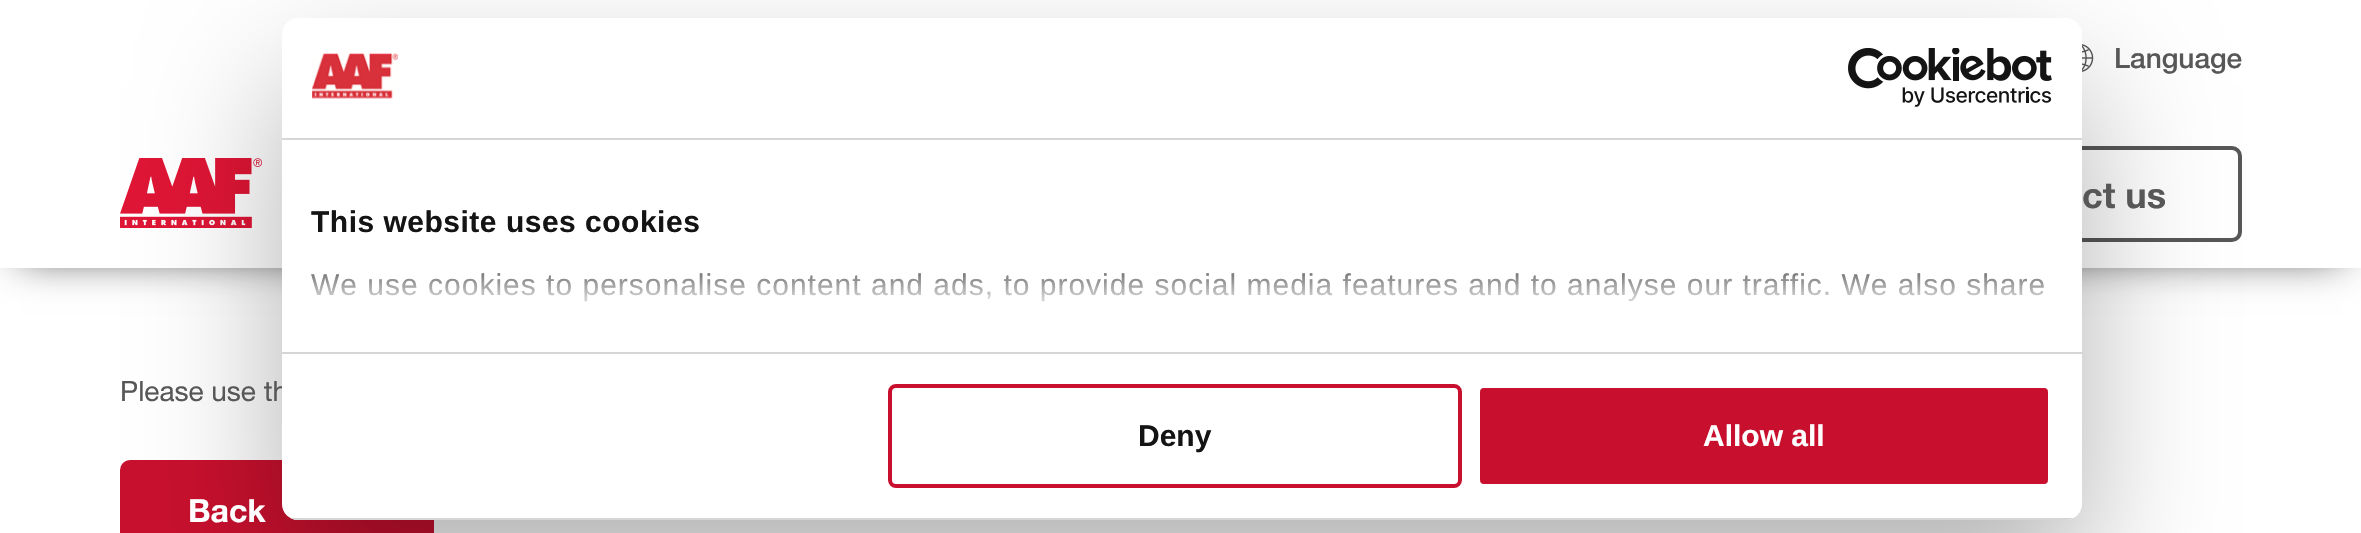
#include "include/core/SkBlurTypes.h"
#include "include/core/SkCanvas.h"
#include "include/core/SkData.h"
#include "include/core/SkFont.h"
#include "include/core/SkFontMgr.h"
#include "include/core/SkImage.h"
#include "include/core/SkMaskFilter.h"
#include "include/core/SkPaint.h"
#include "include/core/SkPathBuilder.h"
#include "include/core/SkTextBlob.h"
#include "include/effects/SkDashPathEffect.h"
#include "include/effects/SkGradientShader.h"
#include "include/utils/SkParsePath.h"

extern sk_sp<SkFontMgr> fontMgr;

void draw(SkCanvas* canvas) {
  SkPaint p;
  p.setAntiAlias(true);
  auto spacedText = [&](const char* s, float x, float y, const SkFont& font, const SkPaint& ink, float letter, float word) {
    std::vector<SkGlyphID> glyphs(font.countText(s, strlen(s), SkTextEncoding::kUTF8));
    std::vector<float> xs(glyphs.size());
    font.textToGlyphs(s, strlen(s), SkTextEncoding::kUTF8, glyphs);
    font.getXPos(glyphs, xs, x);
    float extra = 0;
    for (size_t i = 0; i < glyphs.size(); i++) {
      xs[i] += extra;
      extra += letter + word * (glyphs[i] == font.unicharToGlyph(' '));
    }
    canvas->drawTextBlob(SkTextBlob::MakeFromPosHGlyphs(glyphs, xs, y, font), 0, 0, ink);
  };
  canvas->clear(SK_ColorWHITE);
  p.setColor(SkColorSetRGB(51, 51, 51));
  p.setMaskFilter(SkMaskFilter::MakeBlur(kNormal_SkBlurStyle, 20));
  canvas->drawRect(SkRect::MakeLTRB(20, 28, 2342, 256), p);
  p.setMaskFilter(nullptr);
  p.setColor(SK_ColorWHITE);
  canvas->drawRect(SkRect::MakeLTRB(0, 0, 2361, 268), p);
  canvas->drawImageRect(SkImages::DeferredFromEncodedData(SkData::MakeFromFileName("images/1.png")), SkRect::MakeLTRB(2082, 44, 2094, 72), SkSamplingOptions());
  canvas->drawImageRect(SkImages::DeferredFromEncodedData(SkData::MakeFromFileName("images/2.png")), SkRect::MakeLTRB(120, 158, 262, 228), SkSamplingOptions());
  p.setStyle(SkPaint::kStroke_Style);
  p.setStrokeWidth(4);
  p.setColor(SkColorSetRGB(87, 87, 87));
  canvas->drawRoundRect(SkRect::MakeLTRB(1904, 148, 2240, 240), 8, 8, p);
  p.setStyle(SkPaint::kFill_Style);
  p.setColor(SkColorSetRGB(200, 16, 46));
  canvas->drawRoundRect(SkRect::MakeLTRB(122, 462, 432, 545), 8, 8, p);
  p.setStyle(SkPaint::kStroke_Style);
  canvas->drawRoundRect(SkRect::MakeLTRB(122, 462, 432, 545), 8, 8, p);
  p.setStyle(SkPaint::kFill_Style);
  p.setColor(SkColorSetARGB(77, 0, 0, 0));
  p.setMaskFilter(SkMaskFilter::MakeBlur(kNormal_SkBlurStyle, 68));
  canvas->drawRoundRect(SkRect::MakeLTRB(282, 82, 2082, 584), 16, 16, p);
  p.setMaskFilter(nullptr);
  SkFont font1(fontMgr->matchFamilyStyle("Helvetica Neue", SkFontStyle(500, SkFontStyle::kNormal_Width, SkFontStyle::kUpright_Slant)), 28);
  font1.setSubpixel(true);
  p.setColor(SkColorSetRGB(87, 87, 87));
  canvas->drawString("Language", 2114, 68, font1, p);
  SkFont font2(fontMgr->matchFamilyStyle("Helvetica Neue", SkFontStyle::Bold()), 36);
  font2.setSubpixel(true);
  canvas->drawString("ct us", 2082, 208, font2, p);
  SkFont font3(fontMgr->matchFamilyStyle("Helvetica Neue", SkFontStyle::Normal()), 28);
  font3.setSubpixel(true);
  canvas->drawString("Please use th", 120, 401, font3, p);
  SkFont font4(fontMgr->matchFamilyStyle("Helvetica Neue", SkFontStyle::Bold()), 32);
  font4.setSubpixel(true);
  p.setColor(SK_ColorWHITE);
  canvas->drawString("Back", 188, 522, font4, p);
  canvas->drawRoundRect(SkRect::MakeLTRB(282, 18, 2082, 520), 16, 16, p);
  p.setColor(SkColorSetRGB(214, 214, 214));
  canvas->drawRect(SkRect::MakeLTRB(282, 138, 2082, 140), p);
  canvas->drawImageRect(SkImages::DeferredFromEncodedData(SkData::MakeFromFileName("images/3.png")), SkRect::MakeLTRB(312, 53, 399, 99), SkSamplingOptions());
  canvas->drawImageRect(SkImages::DeferredFromEncodedData(SkData::MakeFromFileName("images/4.png")), SkRect::MakeLTRB(1848, 48, 2052, 107), SkSamplingOptions());
  canvas->drawRect(SkRect::MakeLTRB(282, 352, 2082, 354), p);
  SkFont font5(fontMgr->matchFamilyStyle("Liberation Sans", SkFontStyle::Bold()), 30);
  font5.setSubpixel(true);
  p.setColor(SkColorSetRGB(20, 20, 20));
  spacedText("This website uses cookies", 311, 232, font5, p, 0.5f, 0);
  SkFont font6(fontMgr->matchFamilyStyle("Liberation Sans", SkFontStyle::Normal()), 30);
  font6.setSubpixel(true);
  spacedText("We use cookies to personalise content and ads, to provide social media features and to analyse our traffic. We also share", 311, 295, font6, p, 1, 0);
  {
    const SkColor colors[] = {SK_ColorWHITE, SkColorSetARGB(204, 255, 255, 255), SkColorSetARGB(0, 255, 255, 255)};
    const float stops[] = {0, 0.5f, 1};
    const SkPoint ends[] = {{1169, 351}, {1169, 245}};
    p.setShader(SkGradientShader::MakeLinear(ends, colors, stops, 3, SkTileMode::kClamp));
    p.setAlpha(255);
  }
  canvas->drawRect(SkRect::MakeLTRB(311, 273, 2044, 302), p);
  canvas->save();
  canvas->clipPath(SkPathBuilder().moveTo(298, 18).lineTo(2066, 18).cubicTo(2075, 18, 2082, 25, 2082, 34).lineTo(2082, 504).cubicTo(2082, 513, 2075, 520, 2066, 520).lineTo(298, 520).cubicTo(289, 520, 282, 513, 282, 504).lineTo(282, 34).cubicTo(282, 25, 289, 18, 298, 18).close().detach(), true);
  p.setShader(nullptr);
  p.setColor(SkColorSetRGB(214, 214, 214));
  canvas->drawRect(SkRect::MakeLTRB(282, 518, 2082, 520), p);
  canvas->restore();
  p.setStyle(SkPaint::kStroke_Style);
  p.setColor(SkColorSetRGB(200, 16, 46));
  canvas->drawRoundRect(SkRect::MakeLTRB(890, 386, 1460, 486), 6, 6, p);
  p.setStyle(SkPaint::kFill_Style);
  p.setColor(SkColorSetRGB(20, 20, 20));
  canvas->drawString("Deny", 1138, 446, font5, p);
  p.setColor(SkColorSetRGB(200, 16, 46));
  canvas->drawRoundRect(SkRect::MakeLTRB(1478, 386, 2050, 486), 6, 6, p);
  p.setStyle(SkPaint::kStroke_Style);
  p.setColor(SK_ColorWHITE);
  canvas->drawRoundRect(SkRect::MakeLTRB(1478, 386, 2050, 486), 6, 6, p);
  p.setStyle(SkPaint::kFill_Style);
  canvas->drawString("Allow all", 1703, 446, font5, p);
}
